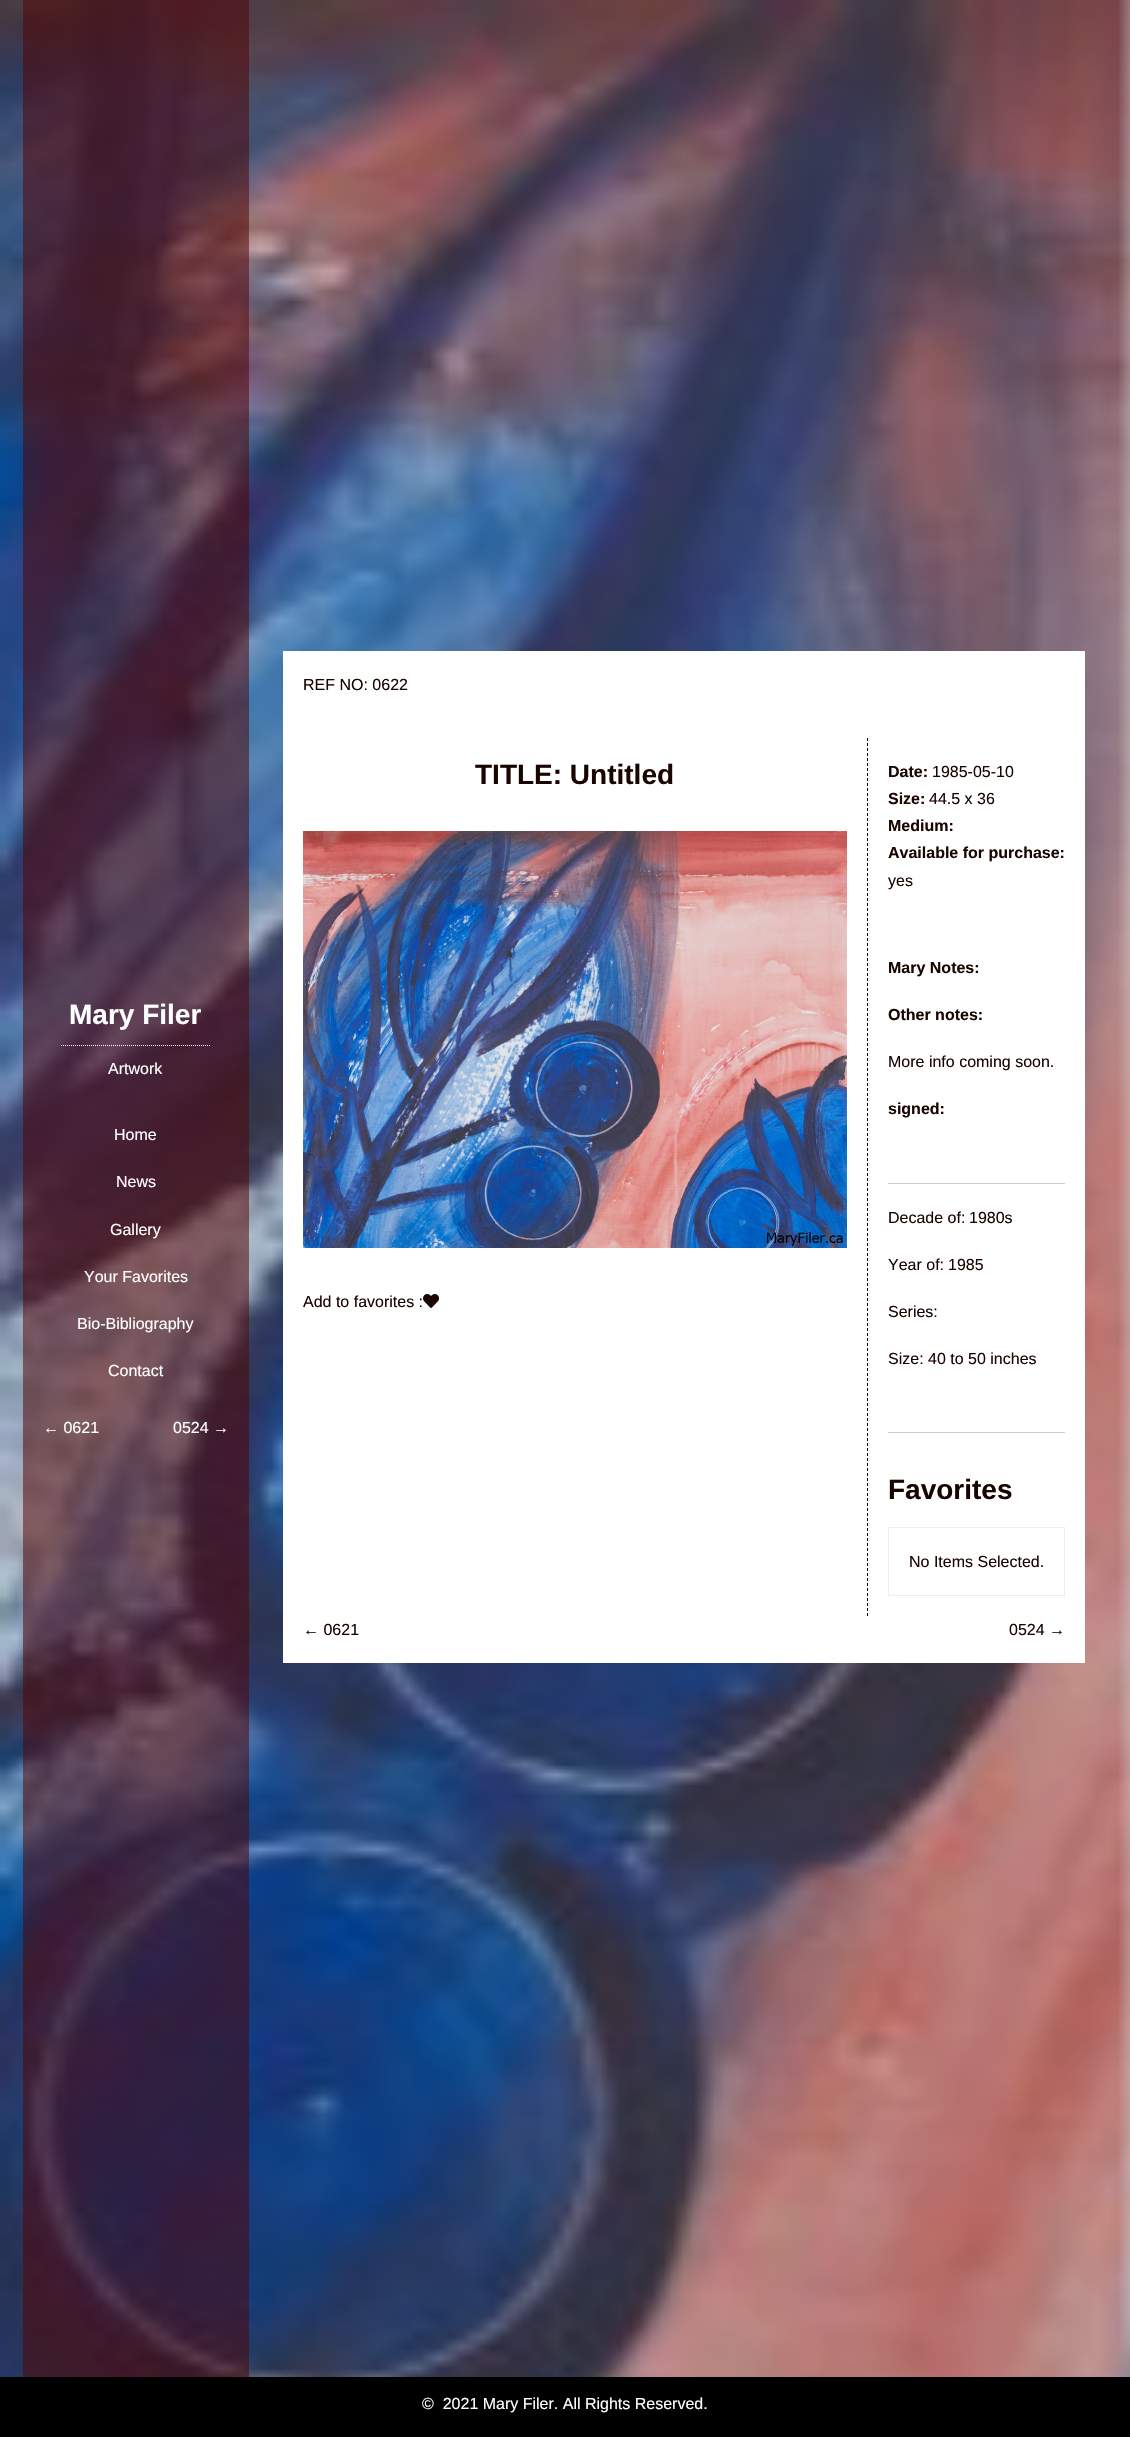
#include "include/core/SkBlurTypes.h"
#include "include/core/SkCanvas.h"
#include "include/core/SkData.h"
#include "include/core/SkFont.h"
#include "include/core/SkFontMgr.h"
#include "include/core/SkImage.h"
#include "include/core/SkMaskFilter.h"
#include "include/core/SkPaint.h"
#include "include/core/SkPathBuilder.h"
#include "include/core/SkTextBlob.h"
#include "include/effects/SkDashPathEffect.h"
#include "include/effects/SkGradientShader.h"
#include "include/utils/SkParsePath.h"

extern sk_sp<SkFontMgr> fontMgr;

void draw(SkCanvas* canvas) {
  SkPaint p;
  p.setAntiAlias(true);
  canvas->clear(SkColorSetRGB(209, 209, 209));
  canvas->drawImageRect(SkImages::DeferredFromEncodedData(SkData::MakeFromFileName("images/1.png")), SkRect::MakeLTRB(0, 0, 1130, 2377), SkSamplingOptions());
  p.setColor(SkColorSetARGB(130, 81, 0, 0));
  canvas->drawRect(SkRect::MakeLTRB(23, 0, 249, 2377), p);
  p.setStyle(SkPaint::kStroke_Style);
  p.setStrokeWidth(1);
  p.setColor(SK_ColorWHITE);
  p.setPathEffect(SkDashPathEffect::Make({{1, 1}}, 0));
  canvas->drawPath(SkPathBuilder().moveTo(61, 1045.5f).lineTo(211, 1045.5f).detach(), p);
  p.setPathEffect(nullptr);
  p.setStyle(SkPaint::kFill_Style);
  canvas->drawRect(SkRect::MakeLTRB(283, 651, 1085, 1663), p);
  canvas->drawImageRect(SkImages::DeferredFromEncodedData(SkData::MakeFromFileName("images/2.png")), SkRect::MakeLTRB(303, 831, 847, 1248), SkSamplingOptions());
  canvas->drawImageRect(SkImages::DeferredFromEncodedData(SkData::MakeFromFileName("images/3.png")), SkRect::MakeLTRB(423, 1294, 439, 1308), SkSamplingOptions());
  p.setStyle(SkPaint::kStroke_Style);
  p.setColor(SK_ColorBLACK);
  p.setPathEffect(SkDashPathEffect::Make({{3, 2}}, 0));
  canvas->drawPath(SkPathBuilder().moveTo(867.5f, 738).lineTo(867.5f, 1616).detach(), p);
  p.setPathEffect(nullptr);
  p.setStyle(SkPaint::kFill_Style);
  p.setColor(SkColorSetRGB(204, 204, 204));
  canvas->drawRect(SkRect::MakeLTRB(888, 1183, 1065, 1184), p);
  canvas->drawRect(SkRect::MakeLTRB(888, 1432, 1065, 1433), p);
  p.setStyle(SkPaint::kStroke_Style);
  p.setColor(SkColorSetRGB(237, 237, 237));
  canvas->drawRect(SkRect::MakeLTRB(888.5f, 1527.5f, 1064.5f, 1595.5f), p);
  p.setStyle(SkPaint::kFill_Style);
  p.setColor(SK_ColorBLACK);
  canvas->drawRect(SkRect::MakeLTRB(0, 2377, 1130, 2437), p);
  SkFont font1(fontMgr->matchFamilyStyle("Liberation Sans", SkFontStyle::Bold()), 28);
  font1.setSubpixel(true);
  p.setColor(SK_ColorWHITE);
  canvas->drawString("Mary Filer", 69, 1024, font1, p);
  SkFont font2(fontMgr->matchFamilyStyle("Liberation Sans", SkFontStyle::Normal()), 16);
  font2.setSubpixel(true);
  canvas->drawString("Artwork", 108, 1074, font2, p);
  canvas->drawString("Home", 114, 1140, font2, p);
  canvas->drawString("News", 116, 1187, font2, p);
  canvas->drawString("Gallery", 110, 1235, font2, p);
  canvas->drawString("Your Favorites", 84, 1282, font2, p);
  canvas->drawString("Bio-Bibliography", 77, 1329, font2, p);
  canvas->drawString("Contact", 108, 1376, font2, p);
  canvas->drawString("← 0621", 43, 1433, font2, p);
  canvas->drawString("0524 →", 173, 1433, font2, p);
  p.setColor(SkColorSetRGB(25, 4, 0));
  canvas->drawString("REF NO: 0622", 303, 690, font2, p);
  canvas->drawString("TITLE: Untitled", 475, 784, font1, p);
  canvas->drawString("Add to favorites :", 303, 1307, font2, p);
  SkFont font3(fontMgr->matchFamilyStyle("Liberation Sans", SkFontStyle::Bold()), 16);
  font3.setSubpixel(true);
  canvas->drawString("Date:", 888, 777, font3, p);
  canvas->drawString("1985-05-10", 932, 777, font2, p);
  canvas->drawString("Size:", 888, 804, font3, p);
  canvas->drawString("44.5 x 36", 929, 804, font2, p);
  canvas->drawString("Medium:", 888, 831, font3, p);
  canvas->drawString("Available for purchase:", 888, 858, font3, p);
  canvas->drawString("yes", 888, 886, font2, p);
  canvas->drawString("Mary Notes:", 888, 973, font3, p);
  canvas->drawString("Other notes:", 888, 1020, font3, p);
  canvas->drawString("More info coming soon.", 888, 1067, font2, p);
  canvas->drawString("signed:", 888, 1114, font3, p);
  canvas->drawString("Decade of:", 888, 1223, font2, p);
  canvas->drawString("1980s", 969, 1223, font2, p);
  canvas->drawString("Year of:", 888, 1270, font2, p);
  canvas->drawString("1985", 948, 1270, font2, p);
  canvas->drawString("Series:", 888, 1317, font2, p);
  canvas->drawString("Size:", 888, 1364, font2, p);
  canvas->drawString("40 to 50 inches", 928, 1364, font2, p);
  canvas->drawString("Favorites", 888, 1499, font1, p);
  canvas->drawString("No Items Selected.", 909, 1567, font2, p);
  canvas->drawString("← 0621", 303, 1635, font2, p);
  canvas->drawString("0524 →", 1009, 1635, font2, p);
  p.setColor(SK_ColorWHITE);
  canvas->drawString("©  2021 Mary Filer. All Rights Reserved.", 422, 2409, font2, p);
}
